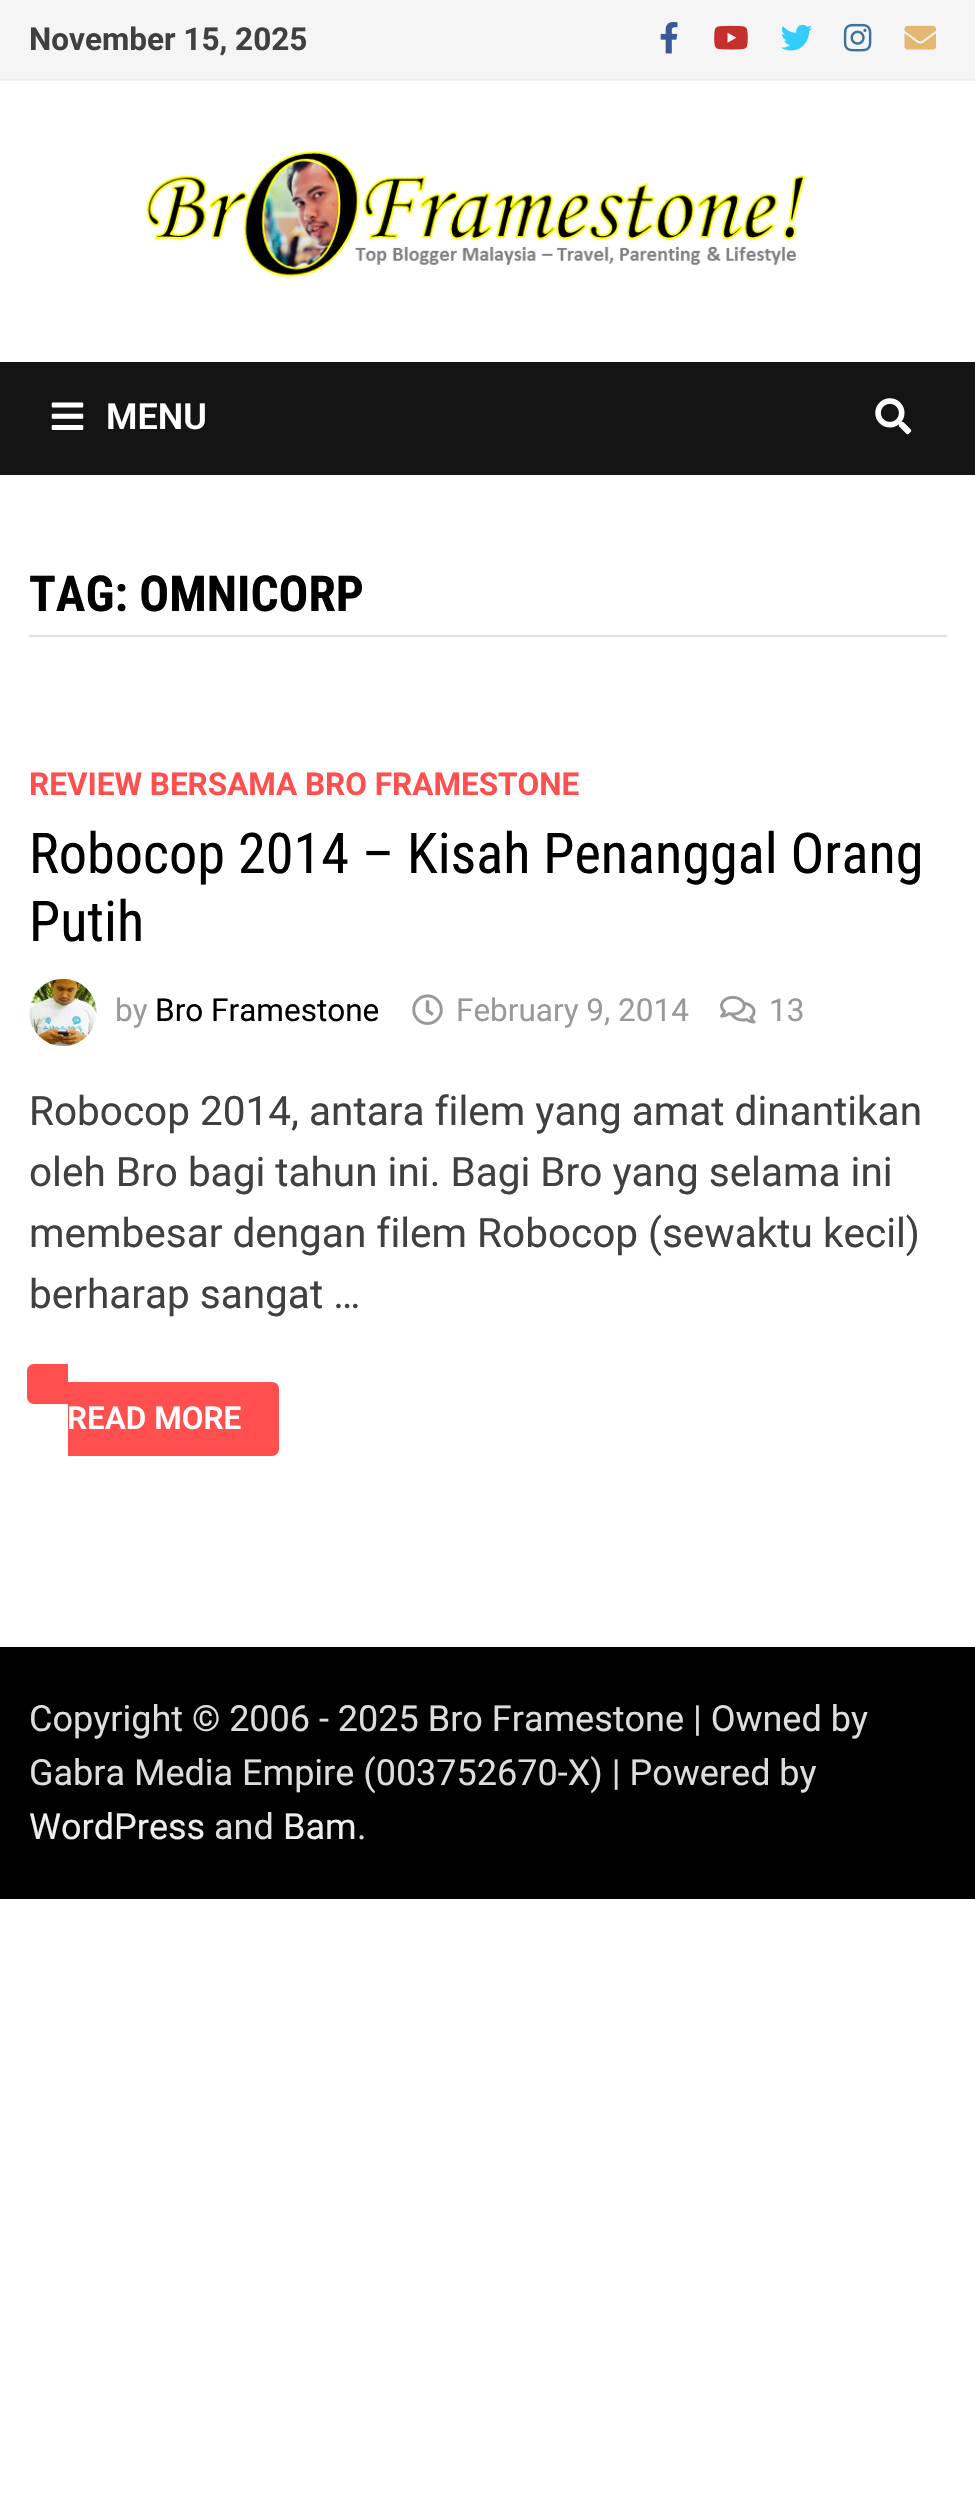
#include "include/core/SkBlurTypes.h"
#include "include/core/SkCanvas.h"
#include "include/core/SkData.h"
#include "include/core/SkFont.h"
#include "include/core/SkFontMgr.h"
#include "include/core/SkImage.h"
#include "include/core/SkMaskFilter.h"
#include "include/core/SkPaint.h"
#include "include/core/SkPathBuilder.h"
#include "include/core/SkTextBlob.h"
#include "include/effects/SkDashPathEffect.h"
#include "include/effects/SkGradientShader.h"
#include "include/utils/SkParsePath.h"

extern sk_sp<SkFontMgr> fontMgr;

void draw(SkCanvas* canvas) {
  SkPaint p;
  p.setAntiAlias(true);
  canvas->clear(SK_ColorWHITE);
  p.setColor(SkColorSetRGB(245, 245, 245));
  canvas->drawRect(SkRect::MakeLTRB(0, 0, 975, 79), p);
  p.setColor(SkColorSetRGB(238, 238, 238));
  canvas->drawRect(SkRect::MakeLTRB(0, 79, 975, 81), p);
  canvas->drawImageRect(SkImages::DeferredFromEncodedData(SkData::MakeFromFileName("images/1.png")), SkRect::MakeLTRB(660, 21, 678, 54), SkSamplingOptions());
  canvas->drawImageRect(SkImages::DeferredFromEncodedData(SkData::MakeFromFileName("images/2.png")), SkRect::MakeLTRB(714, 25, 748, 50), SkSamplingOptions());
  canvas->drawImageRect(SkImages::DeferredFromEncodedData(SkData::MakeFromFileName("images/3.png")), SkRect::MakeLTRB(781, 24, 812, 51), SkSamplingOptions());
  canvas->drawImageRect(SkImages::DeferredFromEncodedData(SkData::MakeFromFileName("images/4.png")), SkRect::MakeLTRB(843, 23, 872, 52), SkSamplingOptions());
  canvas->drawImageRect(SkImages::DeferredFromEncodedData(SkData::MakeFromFileName("images/5.png")), SkRect::MakeLTRB(904, 25, 936, 50), SkSamplingOptions());
  canvas->drawImageRect(SkImages::DeferredFromEncodedData(SkData::MakeFromFileName("images/6.png")), SkRect::MakeLTRB(146, 150, 805, 277), SkSamplingOptions());
  p.setColor(SkColorSetRGB(20, 20, 20));
  canvas->drawRect(SkRect::MakeLTRB(0, 362, 975, 475), p);
  canvas->drawImageRect(SkImages::DeferredFromEncodedData(SkData::MakeFromFileName("images/7.png")), SkRect::MakeLTRB(51, 402, 84, 430), SkSamplingOptions());
  canvas->drawImageRect(SkImages::DeferredFromEncodedData(SkData::MakeFromFileName("images/8.png")), SkRect::MakeLTRB(875, 398, 912, 435), SkSamplingOptions());
  p.setColor(SkColorSetRGB(221, 221, 221));
  canvas->drawRect(SkRect::MakeLTRB(29, 635, 947, 637), p);
  canvas->drawImageRect(SkImages::DeferredFromEncodedData(SkData::MakeFromFileName("images/9.png")), SkRect::MakeLTRB(29, 978, 97, 1047), SkSamplingOptions());
  canvas->drawImageRect(SkImages::DeferredFromEncodedData(SkData::MakeFromFileName("images/10.png")), SkRect::MakeLTRB(412, 994, 443, 1025), SkSamplingOptions());
  canvas->drawImageRect(SkImages::DeferredFromEncodedData(SkData::MakeFromFileName("images/11.png")), SkRect::MakeLTRB(720, 995, 756, 1024), SkSamplingOptions());
  p.setColor(SkColorSetRGB(255, 79, 79));
  canvas->drawPath(SkPathBuilder().moveTo(34, 1364).lineTo(68, 1364).lineTo(68, 1404).lineTo(34, 1404).cubicTo(30, 1404, 27, 1401, 27, 1397).lineTo(27, 1371).cubicTo(27, 1367, 30, 1364, 34, 1364).close().detach(), p);
  canvas->drawPath(SkPathBuilder().moveTo(68, 1382).lineTo(272, 1382).cubicTo(276, 1382, 279, 1385, 279, 1389).lineTo(279, 1449).cubicTo(279, 1453, 276, 1456, 272, 1456).lineTo(68, 1456).close().detach(), p);
  p.setColor(SK_ColorBLACK);
  canvas->drawRect(SkRect::MakeLTRB(0, 1647, 975, 1899), p);
  SkFont font1(fontMgr->matchFamilyStyle("Roboto", SkFontStyle::Bold()), 31.5f);
  font1.setSubpixel(true);
  p.setColor(SkColorSetRGB(64, 64, 64));
  canvas->drawString("November 15, 2025", 29, 50, font1, p);
  SkFont font2(fontMgr->matchFamilyStyle("Roboto", SkFontStyle(600, SkFontStyle::kNormal_Width, SkFontStyle::kUpright_Slant)), 36);
  font2.setSubpixel(true);
  p.setColor(SK_ColorWHITE);
  canvas->drawString("MENU", 106, 429, font2, p);
  SkFont font3(fontMgr->matchFamilyStyle("Roboto Condensed", SkFontStyle::Bold()), 49.5f);
  font3.setSubpixel(true);
  p.setColor(SK_ColorBLACK);
  canvas->drawString("TAG: OMNICORP", 29, 611, font3, p);
  p.setColor(SkColorSetRGB(255, 79, 79));
  canvas->drawString("REVIEW BERSAMA BRO FRAMESTONE", 29, 795, font1, p);
  SkFont font4(fontMgr->matchFamilyStyle("Roboto Condensed", SkFontStyle::Normal()), 56.25f);
  font4.setSubpixel(true);
  p.setColor(SK_ColorBLACK);
  canvas->drawString("Robocop 2014 – Kisah Penanggal Orang", 29, 873, font4, p);
  canvas->drawString("Putih", 29, 941, font4, p);
  SkFont font5(fontMgr->matchFamilyStyle("Roboto", SkFontStyle::Normal()), 31.5f);
  font5.setSubpixel(true);
  p.setColor(SkColorSetRGB(153, 153, 153));
  canvas->drawString("by", 115, 1021, font5, p);
  p.setColor(SK_ColorBLACK);
  canvas->drawString("Bro Framestone", 155, 1021, font5, p);
  p.setColor(SkColorSetRGB(153, 153, 153));
  canvas->drawString("February 9, 2014", 456, 1021, font5, p);
  canvas->drawString("13", 769, 1021, font5, p);
  SkFont font6(fontMgr->matchFamilyStyle("Roboto", SkFontStyle::Normal()), 40.5f);
  font6.setSubpixel(true);
  p.setColor(SkColorSetRGB(64, 64, 64));
  canvas->drawString("Robocop 2014, antara filem yang amat dinantikan", 29, 1125, font6, p);
  canvas->drawString("oleh Bro bagi tahun ini. Bagi Bro yang selama ini", 29, 1186, font6, p);
  canvas->drawString("membesar dengan filem Robocop (sewaktu kecil)", 29, 1247, font6, p);
  canvas->drawString("berharap sangat …", 29, 1308, font6, p);
  SkFont font7(fontMgr->matchFamilyStyle("Roboto", SkFontStyle(600, SkFontStyle::kNormal_Width, SkFontStyle::kUpright_Slant)), 31.5f);
  font7.setSubpixel(true);
  p.setColor(SK_ColorWHITE);
  canvas->drawString("READ MORE", 67, 1429, font7, p);
  SkFont font8(fontMgr->matchFamilyStyle("Roboto", SkFontStyle::Normal()), 36);
  font8.setSubpixel(true);
  p.setColor(SkColorSetRGB(221, 221, 221));
  canvas->drawString("Copyright © 2006 - 2025 Bro Framestone | Owned by", 29, 1731, font8, p);
  canvas->drawString("Gabra Media Empire (003752670-X) | Powered by", 29, 1785, font8, p);
  p.setColor(SkColorSetRGB(238, 238, 238));
  canvas->drawString("WordPress", 29, 1839, font8, p);
  p.setColor(SkColorSetRGB(221, 221, 221));
  canvas->drawString("and", 214, 1839, font8, p);
  p.setColor(SkColorSetRGB(238, 238, 238));
  canvas->drawString("Bam", 283, 1839, font8, p);
  p.setColor(SkColorSetRGB(221, 221, 221));
  canvas->drawString(".", 357, 1839, font8, p);
}
